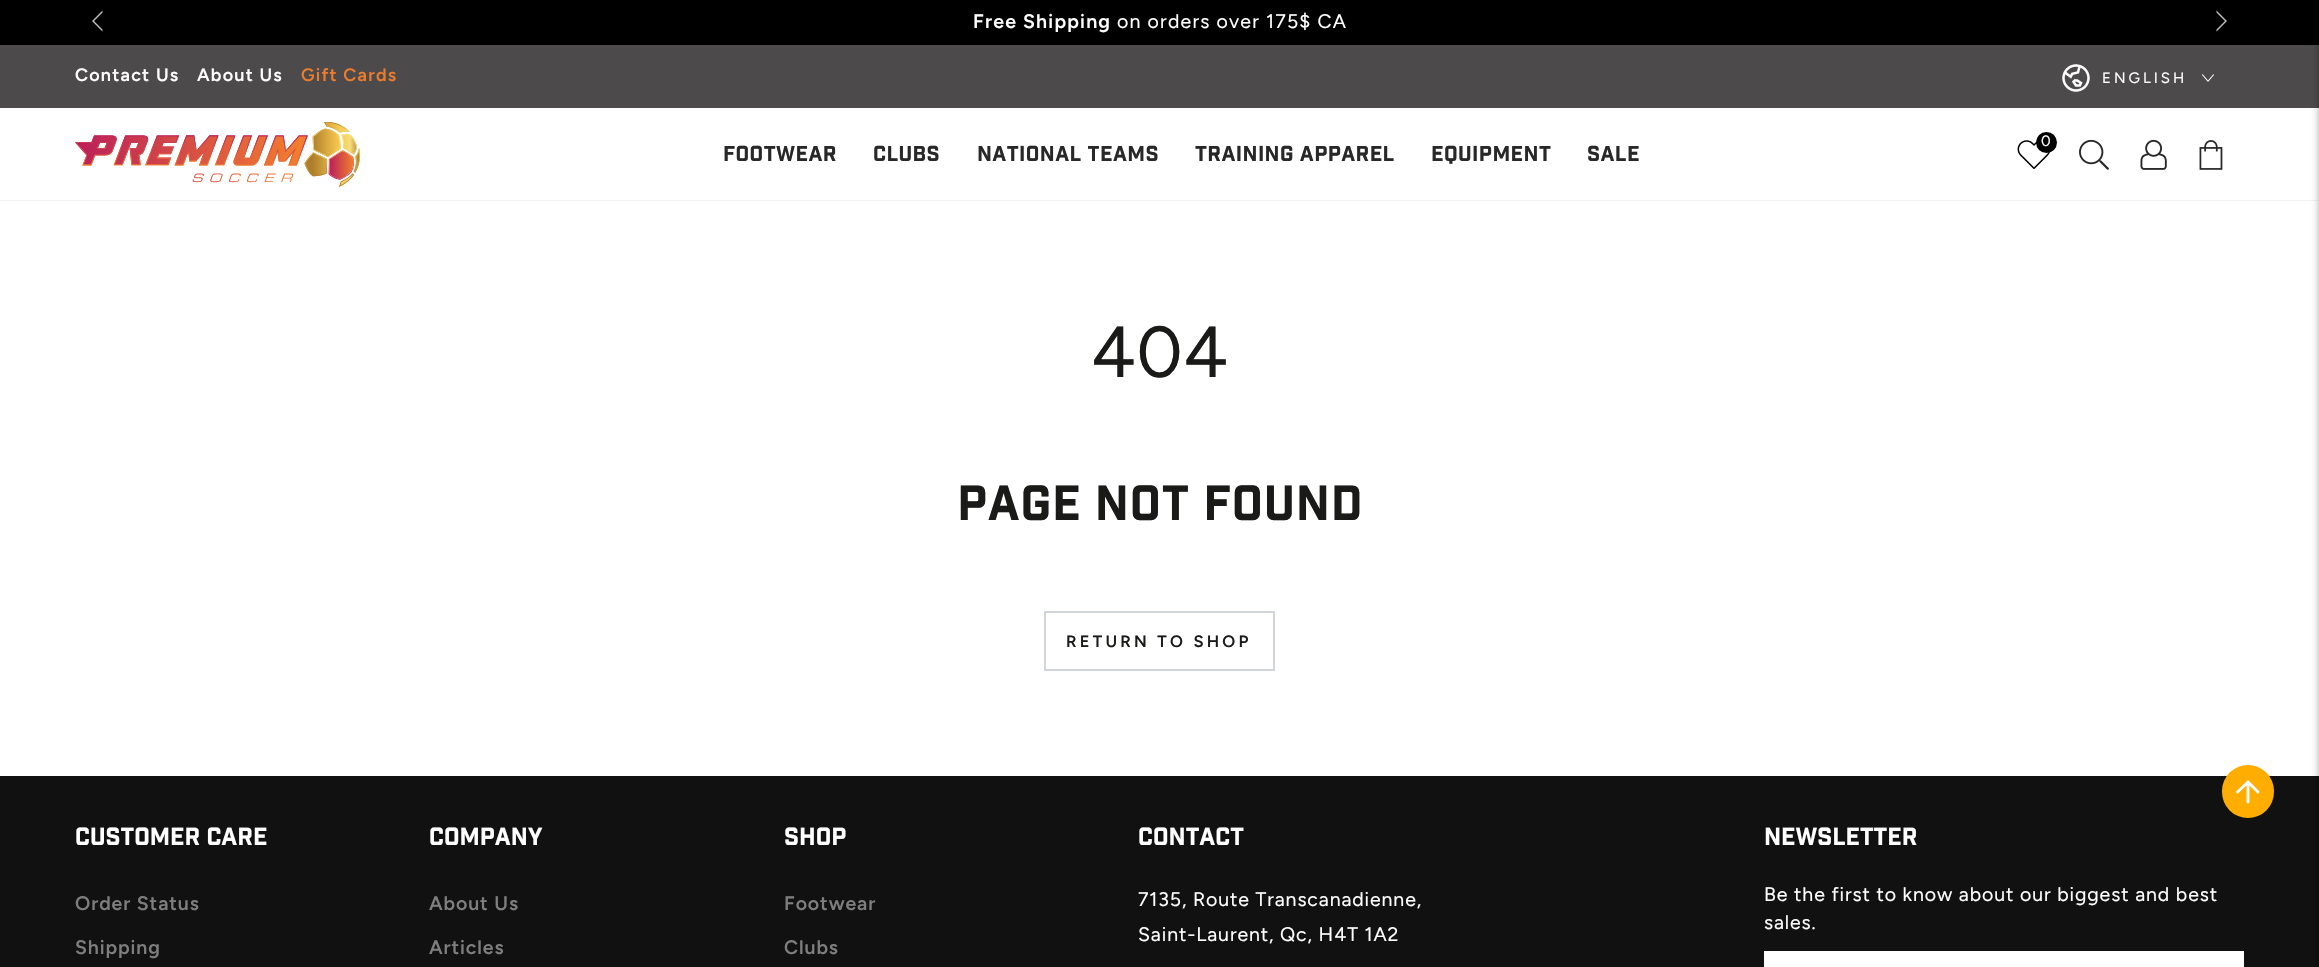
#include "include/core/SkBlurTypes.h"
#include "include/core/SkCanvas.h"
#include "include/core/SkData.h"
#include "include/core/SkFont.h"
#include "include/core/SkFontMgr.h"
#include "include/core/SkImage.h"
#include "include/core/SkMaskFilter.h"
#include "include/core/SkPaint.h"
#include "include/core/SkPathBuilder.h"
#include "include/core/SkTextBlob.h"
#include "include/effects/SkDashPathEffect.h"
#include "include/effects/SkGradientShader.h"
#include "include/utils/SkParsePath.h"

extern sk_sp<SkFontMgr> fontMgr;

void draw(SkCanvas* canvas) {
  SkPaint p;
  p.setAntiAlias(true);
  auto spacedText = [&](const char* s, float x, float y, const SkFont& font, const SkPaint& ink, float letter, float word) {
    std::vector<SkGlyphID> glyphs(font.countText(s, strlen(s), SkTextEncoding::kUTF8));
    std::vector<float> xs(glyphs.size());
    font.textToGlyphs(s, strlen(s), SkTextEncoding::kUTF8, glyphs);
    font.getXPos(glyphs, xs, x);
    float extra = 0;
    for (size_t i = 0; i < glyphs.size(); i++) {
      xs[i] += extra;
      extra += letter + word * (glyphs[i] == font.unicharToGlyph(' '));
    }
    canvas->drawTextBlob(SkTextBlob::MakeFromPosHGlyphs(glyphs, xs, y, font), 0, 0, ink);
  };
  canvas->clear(SK_ColorWHITE);
  p.setColor(SK_ColorBLACK);
  canvas->drawRect(SkRect::MakeLTRB(0, 0, 2319, 45), p);
  p.setColor(SkColorSetRGB(191, 191, 191));
  canvas->drawPath(SkPathBuilder(SkPathFillType::kEvenOdd).moveTo(92, 21).lineTo(102.5f, 31.5f).lineTo(102.5f, 29.5f).lineTo(94, 21).lineTo(102.5f, 12.5f).lineTo(102.5f, 10.5f).close().detach(), p);
  canvas->drawPath(SkPathBuilder(SkPathFillType::kEvenOdd).moveTo(2227, 21).lineTo(2216.5f, 31.5f).lineTo(2216.5f, 29.5f).lineTo(2225, 21).lineTo(2216.5f, 12.5f).lineTo(2216.5f, 10.5f).close().detach(), p);
  p.setColor(SkColorSetRGB(76, 74, 75));
  canvas->drawRect(SkRect::MakeLTRB(0, 45, 2319, 108), p);
  p.setColor(SkColorSetRGB(242, 242, 244));
  canvas->drawRect(SkRect::MakeLTRB(0, 200, 2319, 201), p);
  canvas->drawImageRect(SkImages::DeferredFromEncodedData(SkData::MakeFromFileName("images/1.png")), SkRect::MakeLTRB(2062, 64, 2090, 92), SkSamplingOptions());
  canvas->drawImageRect(SkImages::DeferredFromEncodedData(SkData::MakeFromFileName("images/2.png")), SkRect::MakeLTRB(2202, 74, 2214, 82), SkSamplingOptions());
  canvas->drawImageRect(SkImages::DeferredFromEncodedData(SkData::MakeFromFileName("images/3.png")), SkRect::MakeLTRB(75, 122, 360, 187), SkSamplingOptions());
  canvas->drawImageRect(SkImages::DeferredFromEncodedData(SkData::MakeFromFileName("images/4.png")), SkRect::MakeLTRB(2017, 140, 2050, 169), SkSamplingOptions());
  p.setColor(SK_ColorBLACK);
  canvas->drawCircle(2046.5f, 142.5f, 10.5f, p);
  canvas->drawImageRect(SkImages::DeferredFromEncodedData(SkData::MakeFromFileName("images/5.png")), SkRect::MakeLTRB(2079, 139, 2109, 170), SkSamplingOptions());
  canvas->drawImageRect(SkImages::DeferredFromEncodedData(SkData::MakeFromFileName("images/6.png")), SkRect::MakeLTRB(2140, 139, 2167, 170), SkSamplingOptions());
  canvas->drawImageRect(SkImages::DeferredFromEncodedData(SkData::MakeFromFileName("images/7.png")), SkRect::MakeLTRB(2199, 140, 2223, 170), SkSamplingOptions());
  p.setStyle(SkPaint::kStroke_Style);
  p.setStrokeWidth(2);
  p.setColor(SkColorSetRGB(210, 213, 217));
  canvas->drawRect(SkRect::MakeLTRB(1045, 612, 1274, 670), p);
  p.setStyle(SkPaint::kFill_Style);
  p.setColor(SkColorSetRGB(17, 17, 17));
  canvas->drawRect(SkRect::MakeLTRB(0, 776, 2319, 967), p);
  p.setColor(SK_ColorWHITE);
  canvas->drawRect(SkRect::MakeLTRB(1764, 951, 2244, 967), p);
  p.setColor(SkColorSetRGB(255, 173, 0));
  canvas->drawRoundRect(SkRect::MakeLTRB(2222, 765, 2274, 818), 26, 26, p);
  p.setStyle(SkPaint::kStroke_Style);
  p.setStrokeWidth(2.9f);
  p.setStrokeCap(SkPaint::kRound_Cap);
  p.setStrokeJoin(SkPaint::kRound_Join);
  p.setColor(SK_ColorWHITE);
  canvas->drawPath(SkPathBuilder().moveTo(2248, 802).lineTo(2248, 782).moveTo(2237.5f, 792).lineTo(2248, 782).lineTo(2258, 792).detach(), p);
  p.setStyle(SkPaint::kFill_Style);
  p.setColor(SkColorSetARGB(128, 0, 0, 0));
  p.setMaskFilter(SkMaskFilter::MakeBlur(kNormal_SkBlurStyle, 5));
  canvas->drawRect(SkRect::MakeLTRB(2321, 0, 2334, 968), p);
  p.setMaskFilter(nullptr);
  SkFont font1(fontMgr->matchFamilyStyle("Figtree", SkFontStyle(600, SkFontStyle::kNormal_Width, SkFontStyle::kUpright_Slant)), 19.5f);
  font1.setSubpixel(true);
  p.setColor(SK_ColorWHITE);
  spacedText("Free Shipping", 973, 28, font1, p, 1.2f, 0);
  SkFont font2(fontMgr->matchFamilyStyle("Figtree", SkFontStyle::Normal()), 19.5f);
  font2.setSubpixel(true);
  spacedText("on orders over 175$ CA", 1117, 28, font2, p, 1.2f, 0);
  SkFont font3(fontMgr->matchFamilyStyle("Figtree", SkFontStyle(600, SkFontStyle::kNormal_Width, SkFontStyle::kUpright_Slant)), 18);
  font3.setSubpixel(true);
  spacedText("Contact Us", 75, 81, font3, p, 1.2f, 0);
  spacedText("About Us", 197, 81, font3, p, 1.2f, 0);
  p.setColor(SkColorSetRGB(236, 124, 45));
  spacedText("Gift Cards", 301, 81, font3, p, 1.2f, 0);
  SkFont font4(fontMgr->matchFamilyStyle("Figtree", SkFontStyle::Normal()), 15);
  font4.setSubpixel(true);
  p.setColor(SK_ColorWHITE);
  spacedText("ENGLISH", 2102, 83, font4, p, 3, 0);
  spacedText("0", 2041, 146, font4, p, 0.9f, 0);
  SkFont font5(fontMgr->matchFamilyStyle("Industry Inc", SkFontStyle::Normal()), 21);
  font5.setSubpixel(true);
  p.setColor(SkColorSetRGB(40, 40, 40));
  spacedText("FOOTWEAR", 723, 161, font5, p, 0.4f, 0);
  spacedText("CLUBS", 873, 161, font5, p, 0.4f, 0);
  spacedText("NATIONAL TEAMS", 977, 161, font5, p, 0.4f, 0);
  spacedText("TRAINING APPAREL", 1195, 161, font5, p, 0.4f, 0);
  spacedText("EQUIPMENT", 1431, 161, font5, p, 0.4f, 0);
  spacedText("SALE", 1587, 161, font5, p, 0.4f, 0);
  SkFont font6(fontMgr->matchFamilyStyle("Figtree", SkFontStyle::Normal()), 72);
  font6.setSubpixel(true);
  p.setColor(SkColorSetRGB(26, 27, 24));
  spacedText("404", 1091, 377, font6, p, 0.75f, 0);
  SkFont font7(fontMgr->matchFamilyStyle("Industry Inc", SkFontStyle::Normal()), 48);
  font7.setSubpixel(true);
  spacedText("Page not found", 957, 520, font7, p, 0.75f, 0);
  SkFont font8(fontMgr->matchFamilyStyle("Figtree", SkFontStyle(600, SkFontStyle::kNormal_Width, SkFontStyle::kUpright_Slant)), 16.5f);
  font8.setSubpixel(true);
  spacedText("RETURN TO SHOP", 1066, 647, font8, p, 3.25f, 0);
  SkFont font9(fontMgr->matchFamilyStyle("Industry Inc", SkFontStyle::Normal()), 24);
  font9.setSubpixel(true);
  p.setColor(SK_ColorWHITE);
  canvas->drawString("CUSTOMER CARE", 75, 845, font9, p);
  p.setColor(SkColorSetRGB(126, 126, 126));
  spacedText("Order Status", 75, 910, font1, p, 0.9f, 0);
  spacedText("Shipping", 75, 954, font1, p, 0.9f, 0);
  p.setColor(SK_ColorWHITE);
  canvas->drawString("COMPANY", 429, 845, font9, p);
  p.setColor(SkColorSetRGB(126, 126, 126));
  spacedText("About Us", 429, 910, font1, p, 0.9f, 0);
  spacedText("Articles", 429, 954, font1, p, 0.9f, 0);
  p.setColor(SK_ColorWHITE);
  canvas->drawString("SHOP", 784, 845, font9, p);
  p.setColor(SkColorSetRGB(126, 126, 126));
  spacedText("Footwear", 784, 910, font1, p, 0.9f, 0);
  spacedText("Clubs", 784, 954, font1, p, 0.9f, 0);
  p.setColor(SK_ColorWHITE);
  canvas->drawString("CONTACT", 1138, 845, font9, p);
  spacedText("7135, Route Transcanadienne,", 1138, 906, font2, p, 0.9f, 0);
  spacedText("Saint-Laurent, Qc, H4T 1A2", 1138, 941, font2, p, 0.9f, 0);
  canvas->drawString("NEWSLETTER", 1764, 845, font9, p);
  spacedText("Be the first to know about our biggest and best", 1764, 901, font2, p, 0.9f, 0);
  spacedText("sales.", 1764, 929, font2, p, 0.9f, 0);
}
